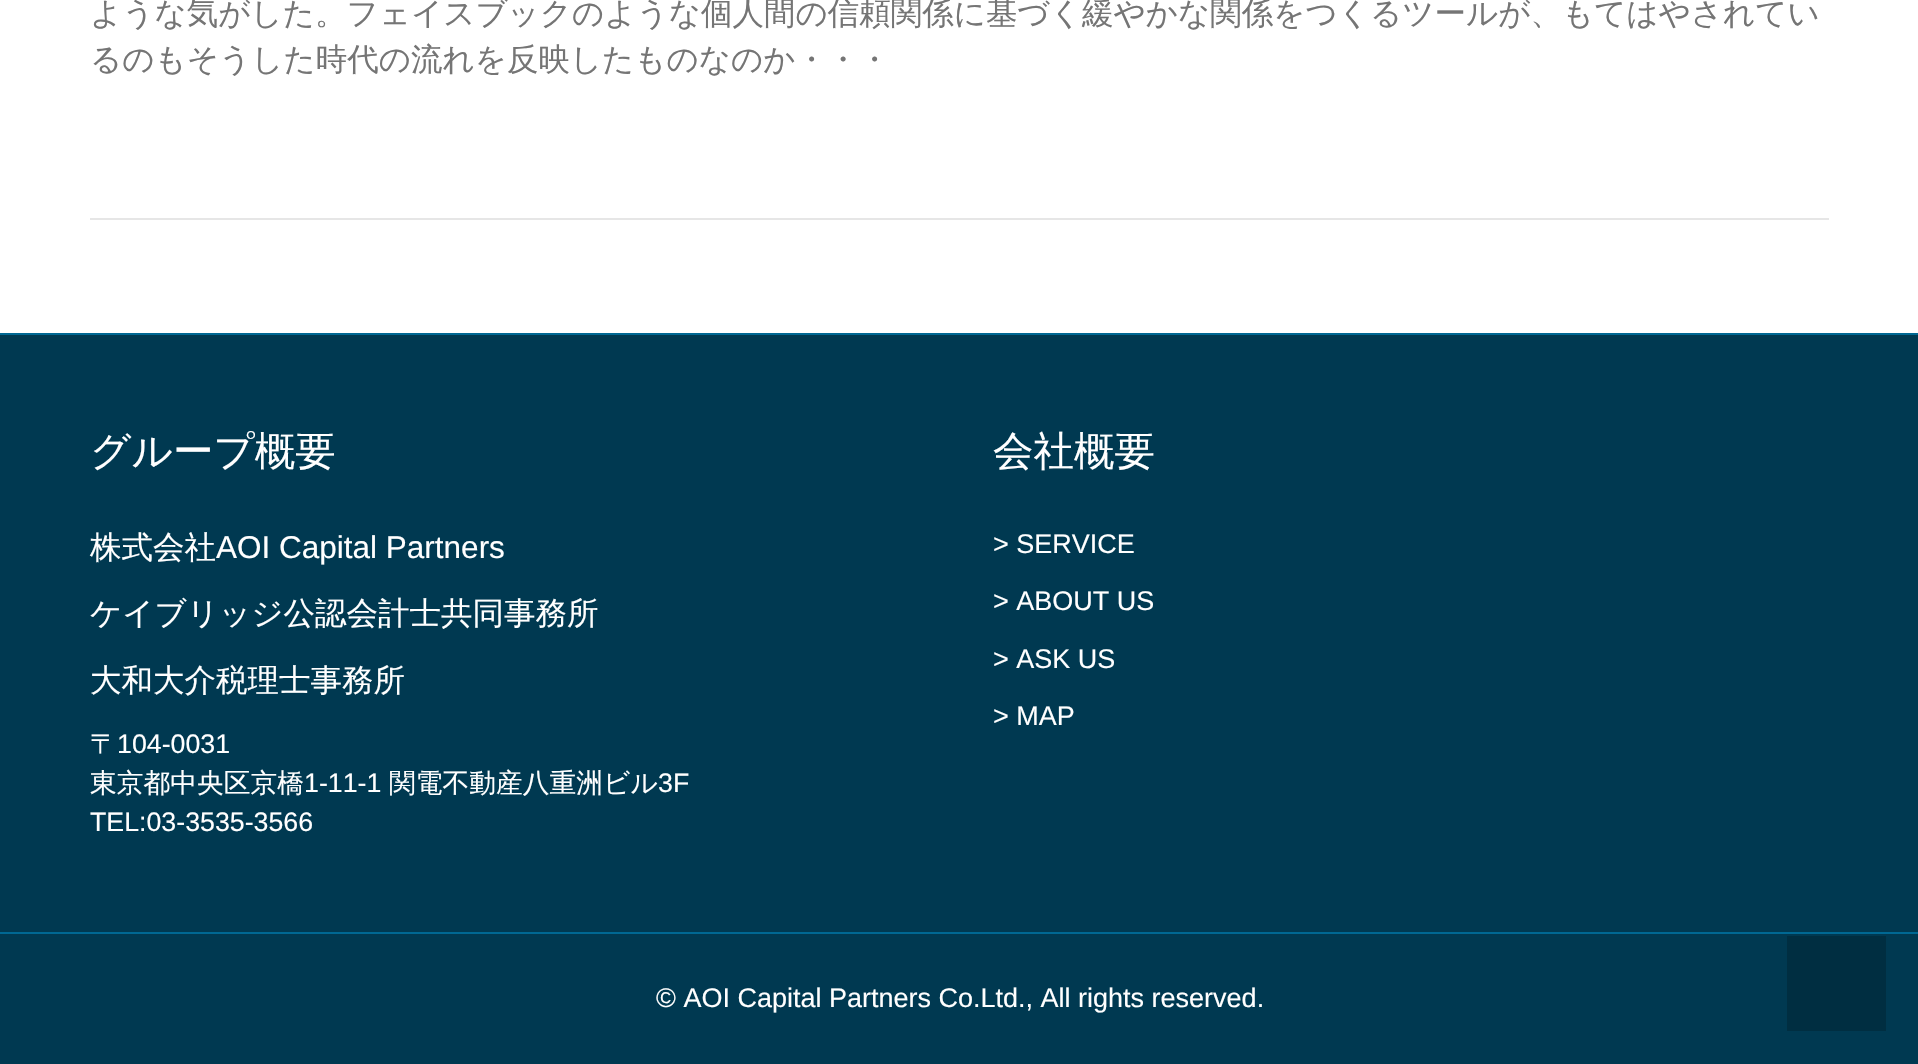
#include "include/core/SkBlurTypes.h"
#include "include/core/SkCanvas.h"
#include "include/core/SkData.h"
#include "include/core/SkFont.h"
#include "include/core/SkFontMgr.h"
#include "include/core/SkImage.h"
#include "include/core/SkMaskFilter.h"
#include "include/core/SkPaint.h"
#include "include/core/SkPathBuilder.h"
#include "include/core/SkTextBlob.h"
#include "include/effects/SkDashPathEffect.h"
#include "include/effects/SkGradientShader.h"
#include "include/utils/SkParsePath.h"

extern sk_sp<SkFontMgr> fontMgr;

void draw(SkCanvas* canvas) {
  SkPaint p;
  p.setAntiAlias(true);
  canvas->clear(SK_ColorWHITE);
  p.setColor(SkColorSetRGB(230, 230, 230));
  canvas->drawRect(SkRect::MakeLTRB(90, 218, 1829, 220), p);
  p.setColor(SkColorSetRGB(0, 57, 81));
  canvas->drawRect(SkRect::MakeLTRB(0, 335, 1918, 932), p);
  p.setColor(SkColorSetRGB(0, 104, 147));
  canvas->drawRect(SkRect::MakeLTRB(0, 333, 1918, 335), p);
  p.setColor(SkColorSetRGB(0, 57, 81));
  canvas->drawRect(SkRect::MakeLTRB(0, 934, 1918, 1064), p);
  p.setColor(SkColorSetRGB(0, 104, 147));
  canvas->drawRect(SkRect::MakeLTRB(0, 932, 1918, 934), p);
  p.setColor(SkColorSetRGB(0, 46, 65));
  canvas->drawRect(SkRect::MakeLTRB(1787, 936, 1886, 1031), p);
  SkFont font1(fontMgr->matchFamilyStyle("WenQuanYi Zen Hei", SkFontStyle(500, SkFontStyle::kNormal_Width, SkFontStyle::kUpright_Slant)), 31.5f);
  font1.setSubpixel(true);
  p.setColor(SkColorSetRGB(117, 117, 117));
  canvas->drawString("ような気がした。フェイスブックのような個人間の信頼関係に基づく緩やかな関係をつくるツールが、もてはやされてい", 90, 24, font1, p);
  canvas->drawString("るのもそうした時代の流れを反映したものなのか・・・", 90, 70, font1, p);
  SkFont font2(fontMgr->matchFamilyStyle("WenQuanYi Zen Hei", SkFontStyle(500, SkFontStyle::kNormal_Width, SkFontStyle::kUpright_Slant)), 40.5f);
  font2.setSubpixel(true);
  p.setColor(SK_ColorWHITE);
  canvas->drawString("グループ概要", 90, 465, font2, p);
  canvas->drawString("株式会社", 90, 558, font1, p);
  SkFont font3(fontMgr->matchFamilyStyle("Liberation Sans", SkFontStyle::Normal()), 31.5f);
  font3.setSubpixel(true);
  canvas->drawString("AOI Capital Partners", 216, 558, font3, p);
  canvas->drawString("ケイブリッジ公認会計士共同事務所", 90, 624, font1, p);
  canvas->drawString("大和大介税理士事務所", 90, 691, font1, p);
  SkFont font4(fontMgr->matchFamilyStyle("WenQuanYi Zen Hei", SkFontStyle(500, SkFontStyle::kNormal_Width, SkFontStyle::kUpright_Slant)), 26.75f);
  font4.setSubpixel(true);
  canvas->drawString("〒", 90, 753, font4, p);
  SkFont font5(fontMgr->matchFamilyStyle("Liberation Sans", SkFontStyle::Normal()), 26.75f);
  font5.setSubpixel(true);
  canvas->drawString("104-0031", 117, 753, font5, p);
  canvas->drawString("東京都中央区京橋", 90, 792, font4, p);
  canvas->drawString("1-11-1", 304, 792, font5, p);
  canvas->drawString("関電不動産八重洲ビル", 389, 792, font4, p);
  canvas->drawString("3F", 658, 792, font5, p);
  canvas->drawString("TEL:03-3535-3566", 90, 831, font5, p);
  canvas->drawString("会社概要", 993, 465, font2, p);
  SkFont font6(fontMgr->matchFamilyStyle("Liberation Sans", SkFontStyle::Normal()), 27);
  font6.setSubpixel(true);
  canvas->drawString("> SERVICE", 993, 553, font6, p);
  canvas->drawString("> ABOUT US", 993, 610, font6, p);
  canvas->drawString("> ASK US", 993, 668, font6, p);
  canvas->drawString("> MAP", 993, 725, font6, p);
  canvas->drawString("© AOI Capital Partners Co.Ltd., All rights reserved.", 656, 1007, font6, p);
}
